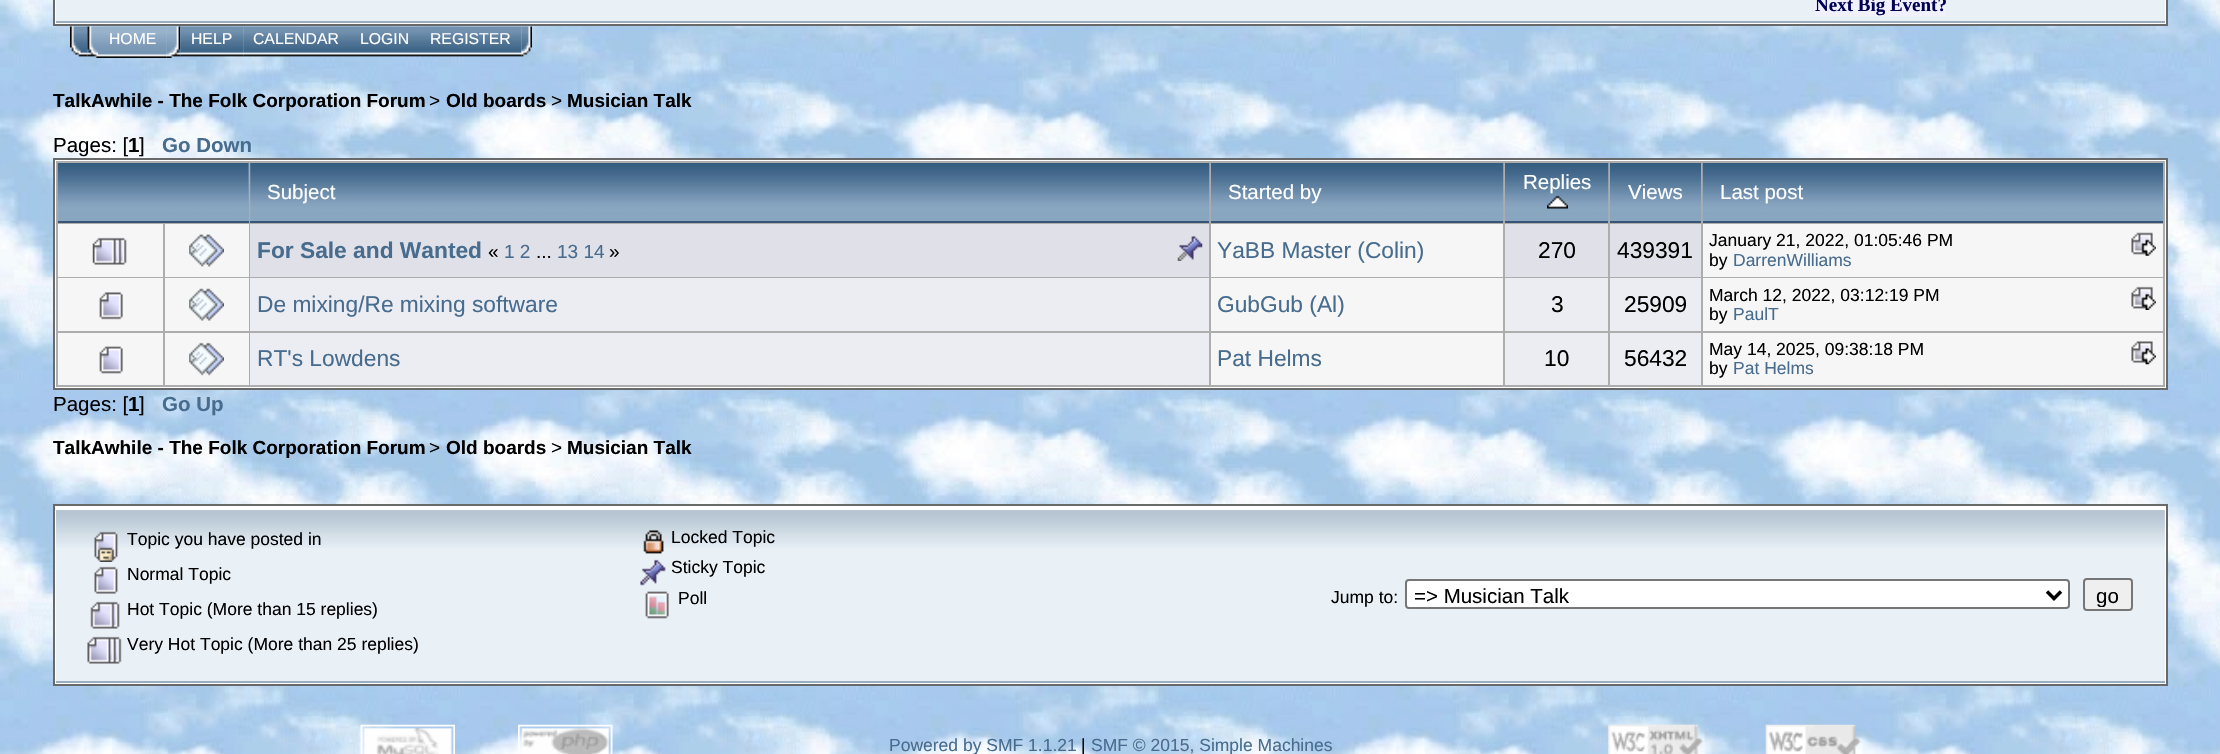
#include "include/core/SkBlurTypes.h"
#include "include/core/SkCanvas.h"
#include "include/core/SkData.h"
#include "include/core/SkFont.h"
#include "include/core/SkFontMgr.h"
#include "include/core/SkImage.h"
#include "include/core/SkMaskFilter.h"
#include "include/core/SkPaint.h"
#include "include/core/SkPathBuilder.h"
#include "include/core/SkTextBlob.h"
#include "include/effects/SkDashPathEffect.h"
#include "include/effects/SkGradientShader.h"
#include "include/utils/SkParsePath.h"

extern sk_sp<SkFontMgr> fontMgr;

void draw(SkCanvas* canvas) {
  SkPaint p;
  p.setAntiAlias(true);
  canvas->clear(SK_ColorWHITE);
  canvas->drawImageRect(SkImages::DeferredFromEncodedData(SkData::MakeFromFileName("images/1.png")), SkRect::MakeLTRB(0, 0, 2220, 754), SkSamplingOptions());
  p.setColor(SK_ColorWHITE);
  canvas->drawRect(SkRect::MakeLTRB(54, -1, 2167, 25), p);
  p.setStyle(SkPaint::kStroke_Style);
  p.setStrokeWidth(2);
  p.setColor(SkColorSetRGB(105, 105, 105));
  canvas->drawRect(SkRect::MakeLTRB(54, -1, 2167, 25), p);
  p.setStyle(SkPaint::kFill_Style);
  p.setColor(SkColorSetRGB(233, 240, 246));
  canvas->drawRect(SkRect::MakeLTRB(56, 0, 2165, 21), p);
  p.setColor(SkColorSetRGB(155, 174, 191));
  canvas->drawRect(SkRect::MakeLTRB(56, 21, 2165, 23), p);
  p.setColor(SkColorSetRGB(240, 240, 255));
  canvas->drawRect(SkRect::MakeLTRB(1815, 0, 1946, 16), p);
  canvas->drawImageRect(SkImages::DeferredFromEncodedData(SkData::MakeFromFileName("images/2.png")), SkRect::MakeLTRB(70, 26, 88, 57), SkSamplingOptions());
  canvas->drawImageRect(SkImages::DeferredFromEncodedData(SkData::MakeFromFileName("images/3.png")), SkRect::MakeLTRB(87, 26, 98, 58), SkSamplingOptions());
  canvas->drawImageRect(SkImages::DeferredFromEncodedData(SkData::MakeFromFileName("images/4.png")), SkRect::MakeLTRB(98, 26, 167, 58), SkSamplingOptions());
  canvas->drawImageRect(SkImages::DeferredFromEncodedData(SkData::MakeFromFileName("images/5.png")), SkRect::MakeLTRB(166, 26, 181, 58), SkSamplingOptions());
  canvas->drawImageRect(SkImages::DeferredFromEncodedData(SkData::MakeFromFileName("images/6.png")), SkRect::MakeLTRB(180, 26, 244, 57), SkSamplingOptions());
  canvas->drawImageRect(SkImages::DeferredFromEncodedData(SkData::MakeFromFileName("images/7.png")), SkRect::MakeLTRB(243, 26, 350, 57), SkSamplingOptions());
  canvas->drawImageRect(SkImages::DeferredFromEncodedData(SkData::MakeFromFileName("images/8.png")), SkRect::MakeLTRB(350, 26, 420, 57), SkSamplingOptions());
  canvas->drawImageRect(SkImages::DeferredFromEncodedData(SkData::MakeFromFileName("images/9.png")), SkRect::MakeLTRB(420, 26, 522, 57), SkSamplingOptions());
  canvas->drawImageRect(SkImages::DeferredFromEncodedData(SkData::MakeFromFileName("images/10.png")), SkRect::MakeLTRB(521, 26, 532, 57), SkSamplingOptions());
  p.setColor(SK_ColorWHITE);
  canvas->drawRect(SkRect::MakeLTRB(54, 159, 2167, 389), p);
  p.setStyle(SkPaint::kStroke_Style);
  p.setColor(SkColorSetRGB(105, 105, 105));
  canvas->drawRect(SkRect::MakeLTRB(54, 159, 2167, 389), p);
  p.setStyle(SkPaint::kFill_Style);
  p.setColor(SkColorSetRGB(173, 173, 173));
  canvas->drawRect(SkRect::MakeLTRB(56, 161, 2165, 387), p);
  p.setColor(SkColorSetRGB(136, 166, 192));
  canvas->drawRect(SkRect::MakeLTRB(248, 163, 249, 221), p);
  canvas->drawImageRect(SkImages::DeferredFromEncodedData(SkData::MakeFromFileName("images/11.png")), SkRect::MakeLTRB(57, 163, 249, 223), SkSamplingOptions());
  p.setColor(SkColorSetRGB(55, 85, 118));
  canvas->drawRect(SkRect::MakeLTRB(58, 221, 249, 223), p);
  canvas->drawImageRect(SkImages::DeferredFromEncodedData(SkData::MakeFromFileName("images/12.png")), SkRect::MakeLTRB(250, 163, 1210, 223), SkSamplingOptions());
  canvas->drawRect(SkRect::MakeLTRB(250, 221, 1209, 223), p);
  canvas->drawImageRect(SkImages::DeferredFromEncodedData(SkData::MakeFromFileName("images/13.png")), SkRect::MakeLTRB(1211, 163, 1504, 223), SkSamplingOptions());
  canvas->drawRect(SkRect::MakeLTRB(1211, 221, 1503, 223), p);
  canvas->drawImageRect(SkImages::DeferredFromEncodedData(SkData::MakeFromFileName("images/14.png")), SkRect::MakeLTRB(1505, 163, 1609, 223), SkSamplingOptions());
  canvas->drawRect(SkRect::MakeLTRB(1505, 221, 1608, 223), p);
  canvas->drawImageRect(SkImages::DeferredFromEncodedData(SkData::MakeFromFileName("images/15.png")), SkRect::MakeLTRB(1547, 195, 1568, 209), SkSamplingOptions());
  canvas->drawImageRect(SkImages::DeferredFromEncodedData(SkData::MakeFromFileName("images/16.png")), SkRect::MakeLTRB(1610, 163, 1701, 221), SkSamplingOptions());
  canvas->drawRect(SkRect::MakeLTRB(1610, 221, 1701, 223), p);
  canvas->drawImageRect(SkImages::DeferredFromEncodedData(SkData::MakeFromFileName("images/17.png")), SkRect::MakeLTRB(1702, 163, 2163, 223), SkSamplingOptions());
  canvas->drawRect(SkRect::MakeLTRB(1703, 221, 2163, 223), p);
  p.setColor(SkColorSetRGB(246, 246, 246));
  canvas->drawRect(SkRect::MakeLTRB(58, 224, 163, 277), p);
  canvas->drawImageRect(SkImages::DeferredFromEncodedData(SkData::MakeFromFileName("images/18.png")), SkRect::MakeLTRB(92, 237, 127, 265), SkSamplingOptions());
  canvas->drawRect(SkRect::MakeLTRB(165, 224, 249, 277), p);
  canvas->drawImageRect(SkImages::DeferredFromEncodedData(SkData::MakeFromFileName("images/19.png")), SkRect::MakeLTRB(189, 234, 224, 267), SkSamplingOptions());
  p.setColor(SkColorSetRGB(224, 225, 232));
  canvas->drawRect(SkRect::MakeLTRB(250, 224, 1209, 277), p);
  canvas->drawImageRect(SkImages::DeferredFromEncodedData(SkData::MakeFromFileName("images/20.png")), SkRect::MakeLTRB(1177, 236, 1203, 261), SkSamplingOptions());
  p.setColor(SkColorSetRGB(246, 246, 246));
  canvas->drawRect(SkRect::MakeLTRB(1211, 224, 1503, 277), p);
  p.setColor(SkColorSetRGB(224, 225, 232));
  canvas->drawRect(SkRect::MakeLTRB(1505, 224, 1608, 277), p);
  canvas->drawRect(SkRect::MakeLTRB(1610, 224, 1701, 277), p);
  p.setColor(SkColorSetRGB(246, 246, 246));
  canvas->drawRect(SkRect::MakeLTRB(1703, 224, 2163, 277), p);
  canvas->drawImageRect(SkImages::DeferredFromEncodedData(SkData::MakeFromFileName("images/21.png")), SkRect::MakeLTRB(2131, 232, 2156, 256), SkSamplingOptions());
  canvas->drawRect(SkRect::MakeLTRB(58, 278, 163, 331), p);
  canvas->drawImageRect(SkImages::DeferredFromEncodedData(SkData::MakeFromFileName("images/22.png")), SkRect::MakeLTRB(99, 292, 123, 320), SkSamplingOptions());
  canvas->drawRect(SkRect::MakeLTRB(165, 278, 249, 331), p);
  canvas->drawImageRect(SkImages::DeferredFromEncodedData(SkData::MakeFromFileName("images/23.png")), SkRect::MakeLTRB(189, 288, 224, 321), SkSamplingOptions());
  p.setColor(SkColorSetRGB(236, 237, 243));
  canvas->drawRect(SkRect::MakeLTRB(250, 278, 1209, 331), p);
  p.setColor(SkColorSetRGB(246, 246, 246));
  canvas->drawRect(SkRect::MakeLTRB(1211, 278, 1503, 331), p);
  p.setColor(SkColorSetRGB(236, 237, 243));
  canvas->drawRect(SkRect::MakeLTRB(1505, 278, 1608, 331), p);
  canvas->drawRect(SkRect::MakeLTRB(1610, 278, 1701, 331), p);
  p.setColor(SkColorSetRGB(246, 246, 246));
  canvas->drawRect(SkRect::MakeLTRB(1703, 278, 2163, 331), p);
  canvas->drawImageRect(SkImages::DeferredFromEncodedData(SkData::MakeFromFileName("images/24.png")), SkRect::MakeLTRB(2131, 286, 2156, 310), SkSamplingOptions());
  canvas->drawRect(SkRect::MakeLTRB(58, 333, 163, 385), p);
  canvas->drawImageRect(SkImages::DeferredFromEncodedData(SkData::MakeFromFileName("images/25.png")), SkRect::MakeLTRB(99, 346, 123, 374), SkSamplingOptions());
  canvas->drawRect(SkRect::MakeLTRB(165, 333, 249, 385), p);
  canvas->drawImageRect(SkImages::DeferredFromEncodedData(SkData::MakeFromFileName("images/26.png")), SkRect::MakeLTRB(189, 342, 224, 376), SkSamplingOptions());
  p.setColor(SkColorSetRGB(236, 237, 243));
  canvas->drawRect(SkRect::MakeLTRB(250, 333, 1209, 385), p);
  p.setColor(SkColorSetRGB(246, 246, 246));
  canvas->drawRect(SkRect::MakeLTRB(1211, 333, 1503, 385), p);
  p.setColor(SkColorSetRGB(236, 237, 243));
  canvas->drawRect(SkRect::MakeLTRB(1505, 333, 1608, 385), p);
  canvas->drawRect(SkRect::MakeLTRB(1610, 333, 1701, 385), p);
  p.setColor(SkColorSetRGB(246, 246, 246));
  canvas->drawRect(SkRect::MakeLTRB(1703, 333, 2163, 385), p);
  canvas->drawImageRect(SkImages::DeferredFromEncodedData(SkData::MakeFromFileName("images/27.png")), SkRect::MakeLTRB(2131, 341, 2156, 365), SkSamplingOptions());
  p.setColor(SK_ColorWHITE);
  canvas->drawRect(SkRect::MakeLTRB(54, 505, 2167, 685), p);
  p.setStyle(SkPaint::kStroke_Style);
  p.setColor(SkColorSetRGB(105, 105, 105));
  canvas->drawRect(SkRect::MakeLTRB(54, 505, 2167, 685), p);
  p.setStyle(SkPaint::kFill_Style);
  p.setColor(SkColorSetRGB(233, 240, 246));
  canvas->drawRect(SkRect::MakeLTRB(56, 510, 2165, 681), p);
  canvas->drawImageRect(SkImages::DeferredFromEncodedData(SkData::MakeFromFileName("images/28.png")), SkRect::MakeLTRB(56, 510, 2165, 548), SkSamplingOptions());
  p.setColor(SkColorSetRGB(155, 174, 191));
  canvas->drawRect(SkRect::MakeLTRB(56, 681, 2165, 683), p);
  canvas->drawImageRect(SkImages::DeferredFromEncodedData(SkData::MakeFromFileName("images/29.png")), SkRect::MakeLTRB(94, 531, 118, 562), SkSamplingOptions());
  canvas->drawImageRect(SkImages::DeferredFromEncodedData(SkData::MakeFromFileName("images/30.png")), SkRect::MakeLTRB(94, 566, 118, 594), SkSamplingOptions());
  canvas->drawImageRect(SkImages::DeferredFromEncodedData(SkData::MakeFromFileName("images/31.png")), SkRect::MakeLTRB(90, 601, 120, 629), SkSamplingOptions());
  canvas->drawImageRect(SkImages::DeferredFromEncodedData(SkData::MakeFromFileName("images/32.png")), SkRect::MakeLTRB(87, 636, 122, 664), SkSamplingOptions());
  canvas->drawImageRect(SkImages::DeferredFromEncodedData(SkData::MakeFromFileName("images/33.png")), SkRect::MakeLTRB(643, 530, 664, 554), SkSamplingOptions());
  canvas->drawImageRect(SkImages::DeferredFromEncodedData(SkData::MakeFromFileName("images/34.png")), SkRect::MakeLTRB(640, 559, 666, 586), SkSamplingOptions());
  canvas->drawImageRect(SkImages::DeferredFromEncodedData(SkData::MakeFromFileName("images/35.png")), SkRect::MakeLTRB(645, 591, 669, 619), SkSamplingOptions());
  p.setColor(SK_ColorWHITE);
  canvas->drawRoundRect(SkRect::MakeLTRB(1406, 580, 2069, 608), 3, 3, p);
  p.setStyle(SkPaint::kStroke_Style);
  p.setColor(SkColorSetRGB(118, 118, 118));
  canvas->drawRoundRect(SkRect::MakeLTRB(1406, 580, 2069, 608), 3, 3, p);
  p.setStrokeWidth(3.5f);
  p.setColor(SK_ColorBLACK);
  canvas->drawPath(SkPathBuilder().moveTo(2047, 591.5f).lineTo(2054, 598.5f).lineTo(2061, 591.5f).detach(), p);
  p.setStyle(SkPaint::kFill_Style);
  p.setColor(SkColorSetRGB(239, 239, 239));
  canvas->drawRoundRect(SkRect::MakeLTRB(2084, 579, 2132, 610), 3, 3, p);
  p.setStyle(SkPaint::kStroke_Style);
  p.setStrokeWidth(2);
  p.setColor(SkColorSetRGB(118, 118, 118));
  canvas->drawRoundRect(SkRect::MakeLTRB(2084, 579, 2132, 610), 3, 3, p);
  canvas->drawImageRect(SkImages::DeferredFromEncodedData(SkData::MakeFromFileName("images/36.png")), SkRect::MakeLTRB(360, 724, 455, 754), SkSamplingOptions());
  canvas->drawImageRect(SkImages::DeferredFromEncodedData(SkData::MakeFromFileName("images/37.png")), SkRect::MakeLTRB(518, 724, 613, 754), SkSamplingOptions());
  canvas->drawImageRect(SkImages::DeferredFromEncodedData(SkData::MakeFromFileName("images/38.png")), SkRect::MakeLTRB(1608, 724, 1703, 754), SkSamplingOptions());
  canvas->drawImageRect(SkImages::DeferredFromEncodedData(SkData::MakeFromFileName("images/39.png")), SkRect::MakeLTRB(1765, 724, 1861, 754), SkSamplingOptions());
  SkFont font1(fontMgr->matchFamilyStyle("Liberation Serif", SkFontStyle::Bold()), 19);
  font1.setSubpixel(true);
  p.setStyle(SkPaint::kFill_Style);
  p.setColor(SkColorSetRGB(0, 0, 85));
  canvas->drawString("Next Big Event?", 1815, 11, font1, p);
  SkFont font2(fontMgr->matchFamilyStyle("Liberation Sans", SkFontStyle::Normal()), 15.75f);
  font2.setSubpixel(true);
  p.setColor(SK_ColorWHITE);
  canvas->drawString("HOME", 109, 44, font2, p);
  canvas->drawString("HELP", 191, 44, font2, p);
  canvas->drawString("CALENDAR", 253, 44, font2, p);
  canvas->drawString("LOGIN", 360, 44, font2, p);
  canvas->drawString("REGISTER", 430, 44, font2, p);
  SkFont font3(fontMgr->matchFamilyStyle("Liberation Sans", SkFontStyle::Bold()), 19);
  font3.setSubpixel(true);
  p.setColor(SK_ColorBLACK);
  canvas->drawString("TalkAwhile - The Folk Corporation Forum", 53, 107, font3, p);
  SkFont font4(fontMgr->matchFamilyStyle("Liberation Sans", SkFontStyle::Normal()), 19);
  font4.setSubpixel(true);
  canvas->drawString(">", 429, 107, font4, p);
  canvas->drawString("Old boards", 446, 107, font3, p);
  canvas->drawString(">", 551, 107, font4, p);
  canvas->drawString("Musician Talk", 567, 107, font3, p);
  SkFont font5(fontMgr->matchFamilyStyle("Liberation Sans", SkFontStyle::Normal()), 20.5f);
  font5.setSubpixel(true);
  canvas->drawString("Pages: [", 53, 152, font5, p);
  SkFont font6(fontMgr->matchFamilyStyle("Liberation Sans", SkFontStyle::Bold()), 20.5f);
  font6.setSubpixel(true);
  canvas->drawString("1", 128, 152, font6, p);
  canvas->drawString("]", 139, 152, font5, p);
  p.setColor(SkColorSetRGB(71, 108, 142));
  canvas->drawString("Go Down", 162, 152, font6, p);
  p.setColor(SK_ColorWHITE);
  canvas->drawString("Subject", 267, 199, font5, p);
  canvas->drawString("Started by", 1228, 199, font5, p);
  canvas->drawString("Replies", 1523, 189, font5, p);
  canvas->drawString("Views", 1628, 199, font5, p);
  canvas->drawString("Last post", 1720, 199, font5, p);
  SkFont font7(fontMgr->matchFamilyStyle("Liberation Sans", SkFontStyle::Bold()), 22.75f);
  font7.setSubpixel(true);
  p.setColor(SkColorSetRGB(71, 108, 142));
  canvas->drawString("For Sale and Wanted", 257, 258, font7, p);
  p.setColor(SK_ColorBLACK);
  canvas->drawString("«", 488, 258, font4, p);
  p.setColor(SkColorSetRGB(71, 108, 142));
  canvas->drawString("1 2", 504, 258, font4, p);
  p.setColor(SK_ColorBLACK);
  canvas->drawString("...", 536, 258, font4, p);
  p.setColor(SkColorSetRGB(71, 108, 142));
  canvas->drawString("13 14", 557, 258, font4, p);
  p.setColor(SK_ColorBLACK);
  canvas->drawString("»", 609, 258, font4, p);
  SkFont font8(fontMgr->matchFamilyStyle("Liberation Sans", SkFontStyle::Normal()), 22.75f);
  font8.setSubpixel(true);
  p.setColor(SkColorSetRGB(71, 108, 142));
  canvas->drawString("YaBB Master (Colin)", 1217, 258, font8, p);
  p.setColor(SK_ColorBLACK);
  canvas->drawString("270", 1538, 258, font8, p);
  canvas->drawString("439391", 1617, 258, font8, p);
  SkFont font9(fontMgr->matchFamilyStyle("Liberation Sans", SkFontStyle::Normal()), 17.5f);
  font9.setSubpixel(true);
  canvas->drawString("January 21, 2022, 01:05:46 PM", 1709, 246, font9, p);
  canvas->drawString("by", 1709, 266, font9, p);
  p.setColor(SkColorSetRGB(71, 108, 142));
  canvas->drawString("DarrenWilliams", 1733, 266, font9, p);
  canvas->drawString("De mixing/Re mixing software", 257, 312, font8, p);
  canvas->drawString("GubGub (Al)", 1217, 312, font8, p);
  p.setColor(SK_ColorBLACK);
  canvas->drawString("3", 1551, 312, font8, p);
  canvas->drawString("25909", 1624, 312, font8, p);
  canvas->drawString("March 12, 2022, 03:12:19 PM", 1709, 301, font9, p);
  canvas->drawString("by", 1709, 320, font9, p);
  p.setColor(SkColorSetRGB(71, 108, 142));
  canvas->drawString("PaulT", 1733, 320, font9, p);
  canvas->drawString("RT's Lowdens", 257, 366, font8, p);
  canvas->drawString("Pat Helms", 1217, 366, font8, p);
  p.setColor(SK_ColorBLACK);
  canvas->drawString("10", 1544, 366, font8, p);
  canvas->drawString("56432", 1624, 366, font8, p);
  canvas->drawString("May 14, 2025, 09:38:18 PM", 1709, 355, font9, p);
  canvas->drawString("by", 1709, 374, font9, p);
  p.setColor(SkColorSetRGB(71, 108, 142));
  canvas->drawString("Pat Helms", 1733, 374, font9, p);
  p.setColor(SK_ColorBLACK);
  canvas->drawString("Pages: [", 53, 411, font5, p);
  canvas->drawString("1", 128, 411, font6, p);
  canvas->drawString("]", 139, 411, font5, p);
  p.setColor(SkColorSetRGB(71, 108, 142));
  canvas->drawString("Go Up", 162, 411, font6, p);
  p.setColor(SK_ColorBLACK);
  canvas->drawString("TalkAwhile - The Folk Corporation Forum", 53, 454, font3, p);
  canvas->drawString(">", 429, 454, font4, p);
  canvas->drawString("Old boards", 446, 454, font3, p);
  canvas->drawString(">", 551, 454, font4, p);
  canvas->drawString("Musician Talk", 567, 454, font3, p);
  canvas->drawString("Topic you have posted in", 127, 545, font9, p);
  canvas->drawString("Normal Topic", 127, 580, font9, p);
  canvas->drawString("Hot Topic (More than 15 replies)", 127, 615, font9, p);
  canvas->drawString("Very Hot Topic (More than 25 replies)", 127, 650, font9, p);
  canvas->drawString("Locked Topic", 671, 543, font9, p);
  canvas->drawString("Sticky Topic", 671, 573, font9, p);
  canvas->drawString("Poll", 678, 604, font9, p);
  canvas->drawString("Jump to:", 1331, 603, font9, p);
  canvas->drawString("=> Musician Talk", 1414, 603, font5, p);
  canvas->save();
  canvas->clipRect(SkRect::MakeLTRB(2086, 581, 2130, 607));
  canvas->drawString("go", 2096, 603, font5, p);
  canvas->restore();
  p.setColor(SkColorSetRGB(71, 108, 142));
  canvas->drawString("Powered by SMF 1.1.21", 889, 751, font9, p);
  p.setColor(SK_ColorBLACK);
  canvas->drawString("|", 1081, 751, font9, p);
  p.setColor(SkColorSetRGB(71, 108, 142));
  canvas->drawString("SMF © 2015, Simple Machines", 1091, 751, font9, p);
}
